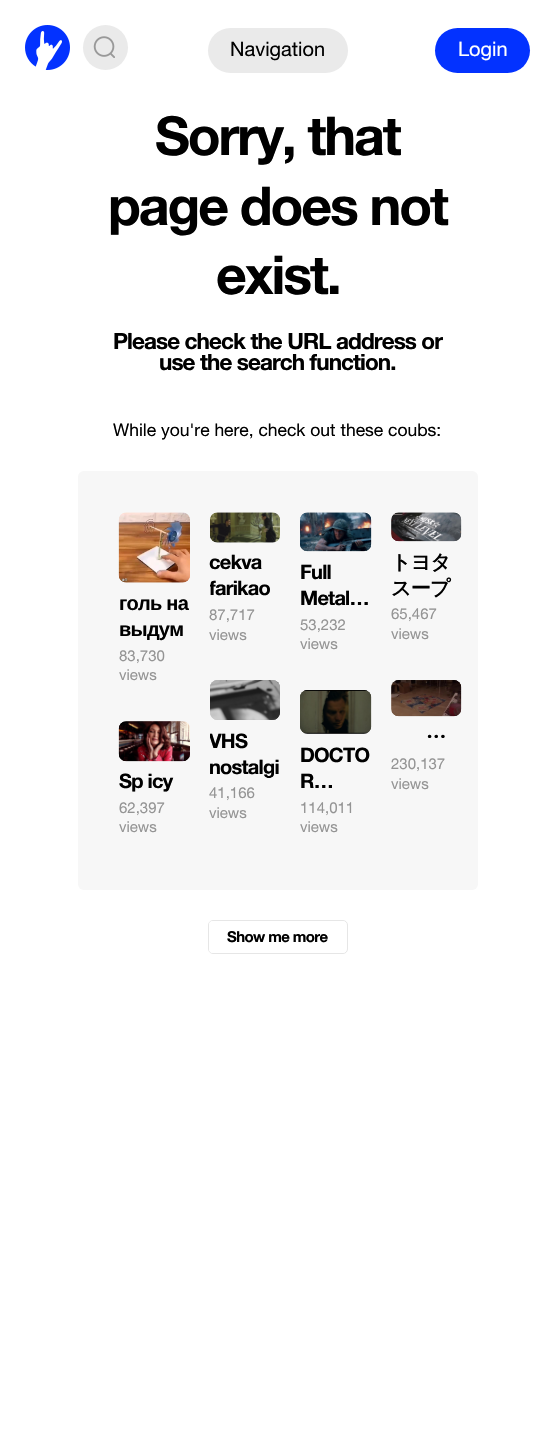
#include "include/core/SkBlurTypes.h"
#include "include/core/SkCanvas.h"
#include "include/core/SkData.h"
#include "include/core/SkFont.h"
#include "include/core/SkFontMgr.h"
#include "include/core/SkImage.h"
#include "include/core/SkMaskFilter.h"
#include "include/core/SkPaint.h"
#include "include/core/SkPathBuilder.h"
#include "include/core/SkTextBlob.h"
#include "include/effects/SkDashPathEffect.h"
#include "include/effects/SkGradientShader.h"
#include "include/utils/SkParsePath.h"

extern sk_sp<SkFontMgr> fontMgr;

void draw(SkCanvas* canvas) {
  SkPaint p;
  p.setAntiAlias(true);
  auto spacedText = [&](const char* s, float x, float y, const SkFont& font, const SkPaint& ink, float letter, float word) {
    std::vector<SkGlyphID> glyphs(font.countText(s, strlen(s), SkTextEncoding::kUTF8));
    std::vector<float> xs(glyphs.size());
    font.textToGlyphs(s, strlen(s), SkTextEncoding::kUTF8, glyphs);
    font.getXPos(glyphs, xs, x);
    float extra = 0;
    for (size_t i = 0; i < glyphs.size(); i++) {
      xs[i] += extra;
      extra += letter + word * (glyphs[i] == font.unicharToGlyph(' '));
    }
    canvas->drawTextBlob(SkTextBlob::MakeFromPosHGlyphs(glyphs, xs, y, font), 0, 0, ink);
  };
  canvas->clear(SK_ColorWHITE);
  canvas->drawImageRect(SkImages::DeferredFromEncodedData(SkData::MakeFromFileName("images/1.png")), SkRect::MakeLTRB(25, 25, 70, 70), SkSamplingOptions());
  p.setColor(SkColorSetRGB(234, 234, 234));
  canvas->drawCircle(105.5f, 47.5f, 22.5f, p);
  canvas->drawImageRect(SkImages::DeferredFromEncodedData(SkData::MakeFromFileName("images/2.png")), SkRect::MakeLTRB(93, 36, 115, 58), SkSamplingOptions());
  canvas->drawRoundRect(SkRect::MakeLTRB(208, 28, 348, 73), 22.5f, 22.5f, p);
  p.setColor(SkColorSetRGB(3, 50, 255));
  canvas->drawRoundRect(SkRect::MakeLTRB(435, 28, 530, 73), 22.5f, 22.5f, p);
  p.setColor(SkColorSetRGB(247, 247, 247));
  canvas->drawRoundRect(SkRect::MakeLTRB(78, 471, 478, 890), 6, 6, p);
  canvas->drawImageRect(SkImages::DeferredFromEncodedData(SkData::MakeFromFileName("images/3.png")), SkRect::MakeLTRB(118, 512, 190, 583), SkSamplingOptions());
  canvas->drawImageRect(SkImages::DeferredFromEncodedData(SkData::MakeFromFileName("images/4.png")), SkRect::MakeLTRB(118, 512, 190, 583), SkSamplingOptions());
  canvas->drawImageRect(SkImages::DeferredFromEncodedData(SkData::MakeFromFileName("images/5.png")), SkRect::MakeLTRB(210, 512, 280, 543), SkSamplingOptions());
  canvas->drawImageRect(SkImages::DeferredFromEncodedData(SkData::MakeFromFileName("images/6.png")), SkRect::MakeLTRB(210, 512, 280, 543), SkSamplingOptions());
  canvas->drawImageRect(SkImages::DeferredFromEncodedData(SkData::MakeFromFileName("images/7.png")), SkRect::MakeLTRB(300, 512, 372, 552), SkSamplingOptions());
  canvas->drawImageRect(SkImages::DeferredFromEncodedData(SkData::MakeFromFileName("images/8.png")), SkRect::MakeLTRB(300, 512, 372, 552), SkSamplingOptions());
  canvas->drawImageRect(SkImages::DeferredFromEncodedData(SkData::MakeFromFileName("images/9.png")), SkRect::MakeLTRB(391, 512, 462, 542), SkSamplingOptions());
  canvas->drawImageRect(SkImages::DeferredFromEncodedData(SkData::MakeFromFileName("images/10.png")), SkRect::MakeLTRB(391, 512, 462, 542), SkSamplingOptions());
  canvas->drawImageRect(SkImages::DeferredFromEncodedData(SkData::MakeFromFileName("images/11.png")), SkRect::MakeLTRB(118, 721, 190, 762), SkSamplingOptions());
  canvas->drawImageRect(SkImages::DeferredFromEncodedData(SkData::MakeFromFileName("images/12.png")), SkRect::MakeLTRB(118, 721, 190, 762), SkSamplingOptions());
  canvas->drawImageRect(SkImages::DeferredFromEncodedData(SkData::MakeFromFileName("images/13.png")), SkRect::MakeLTRB(210, 680, 280, 720), SkSamplingOptions());
  canvas->drawImageRect(SkImages::DeferredFromEncodedData(SkData::MakeFromFileName("images/14.png")), SkRect::MakeLTRB(210, 680, 280, 720), SkSamplingOptions());
  canvas->drawImageRect(SkImages::DeferredFromEncodedData(SkData::MakeFromFileName("images/15.png")), SkRect::MakeLTRB(300, 690, 372, 734), SkSamplingOptions());
  canvas->drawImageRect(SkImages::DeferredFromEncodedData(SkData::MakeFromFileName("images/16.png")), SkRect::MakeLTRB(300, 690, 372, 734), SkSamplingOptions());
  canvas->drawImageRect(SkImages::DeferredFromEncodedData(SkData::MakeFromFileName("images/17.png")), SkRect::MakeLTRB(391, 680, 462, 717), SkSamplingOptions());
  canvas->drawImageRect(SkImages::DeferredFromEncodedData(SkData::MakeFromFileName("images/18.png")), SkRect::MakeLTRB(391, 680, 462, 717), SkSamplingOptions());
  p.setStyle(SkPaint::kStroke_Style);
  p.setStrokeWidth(1);
  p.setColor(SkColorSetRGB(230, 230, 230));
  canvas->drawRoundRect(SkRect::MakeLTRB(208.5f, 920.5f, 347.5f, 953.5f), 4.5f, 4.5f, p);
  p.setStyle(SkPaint::kFill_Style);
  p.setColor(SK_ColorWHITE);
  canvas->drawRoundRect(SkRect::MakeLTRB(209, 921, 346, 953), 4, 4, p);
  SkFont font1(fontMgr->matchFamilyStyle("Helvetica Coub", SkFontStyle::Normal()), 20);
  font1.setSubpixel(true);
  p.setColor(SK_ColorBLACK);
  canvas->drawString("Navigation", 230, 56, font1, p);
  p.setColor(SK_ColorWHITE);
  canvas->drawString("Login", 458, 56, font1, p);
  SkFont font2(fontMgr->matchFamilyStyle("Helvetica Coub", SkFontStyle::Bold()), 53.75f);
  font2.setSubpixel(true);
  p.setColor(SK_ColorBLACK);
  spacedText("Sorry, that", 155, 155, font2, p, -2.1f, 0);
  spacedText("page does not", 108, 225, font2, p, -2.1f, 0);
  spacedText("exist.", 216, 294, font2, p, -2.1f, 0);
  SkFont font3(fontMgr->matchFamilyStyle("Helvetica Coub", SkFontStyle::Bold()), 22.5f);
  font3.setSubpixel(true);
  spacedText("Please check the URL address or", 113, 349, font3, p, -0.9f, 0);
  spacedText("use the search function.", 159, 370, font3, p, -0.9f, 0);
  SkFont font4(fontMgr->matchFamilyStyle("Helvetica Coub", SkFontStyle::Normal()), 17.5f);
  font4.setSubpixel(true);
  canvas->drawString("While you're here, check out these coubs:", 113, 436, font4, p);
  SkFont font5(fontMgr->matchFamilyStyle("Liberation Sans", SkFontStyle::Bold()), 20);
  font5.setSubpixel(true);
  spacedText("голь на", 119, 610, font5, p, -0.75f, 0);
  spacedText("выдум", 119, 636, font5, p, -0.75f, 0);
  SkFont font6(fontMgr->matchFamilyStyle("Helvetica Coub", SkFontStyle::Normal()), 15);
  font6.setSubpixel(true);
  p.setColor(SkColorSetRGB(148, 148, 148));
  canvas->drawString("83,730", 119, 661, font6, p);
  canvas->drawString("views", 119, 680, font6, p);
  SkFont font7(fontMgr->matchFamilyStyle("Helvetica Coub", SkFontStyle::Bold()), 20);
  font7.setSubpixel(true);
  p.setColor(SK_ColorBLACK);
  spacedText("cekva", 209, 569, font7, p, -0.75f, 0);
  canvas->save();
  canvas->clipRect(SkRect::MakeLTRB(210, 551, 280, 603));
  spacedText("farikao", 209, 595, font7, p, -0.75f, 0);
  canvas->restore();
  p.setColor(SkColorSetRGB(148, 148, 148));
  canvas->drawString("87,717", 209, 620, font6, p);
  canvas->drawString("views", 209, 640, font6, p);
  p.setColor(SK_ColorBLACK);
  spacedText("Full", 300, 579, font7, p, -0.75f, 0);
  spacedText("Metal…", 300, 605, font7, p, -0.75f, 0);
  p.setColor(SkColorSetRGB(148, 148, 148));
  canvas->drawString("53,232", 300, 630, font6, p);
  canvas->drawString("views", 300, 649, font6, p);
  SkFont font8(fontMgr->matchFamilyStyle("WenQuanYi Zen Hei", SkFontStyle::Bold()), 20);
  font8.setSubpixel(true);
  p.setColor(SK_ColorBLACK);
  spacedText("トヨタ", 391, 569, font8, p, -0.75f, 0);
  spacedText("スープ", 391, 595, font8, p, -0.75f, 0);
  p.setColor(SkColorSetRGB(148, 148, 148));
  canvas->drawString("65,467", 391, 619, font6, p);
  canvas->drawString("views", 391, 639, font6, p);
  p.setColor(SK_ColorBLACK);
  spacedText("Sp icy", 119, 788, font7, p, -0.75f, 0);
  p.setColor(SkColorSetRGB(148, 148, 148));
  canvas->drawString("62,397", 119, 813, font6, p);
  canvas->drawString("views", 119, 832, font6, p);
  canvas->save();
  canvas->clipRect(SkRect::MakeLTRB(210, 729, 280, 781));
  p.setColor(SK_ColorBLACK);
  spacedText("VHS", 209, 748, font7, p, -0.75f, 0);
  canvas->restore();
  spacedText("nostalgi", 209, 774, font7, p, -0.75f, 0);
  p.setColor(SkColorSetRGB(148, 148, 148));
  canvas->drawString("41,166", 209, 798, font6, p);
  canvas->drawString("views", 209, 818, font6, p);
  p.setColor(SK_ColorBLACK);
  spacedText("DOCTO", 300, 762, font7, p, -0.75f, 0);
  spacedText("R…", 300, 788, font7, p, -0.75f, 0);
  p.setColor(SkColorSetRGB(148, 148, 148));
  canvas->drawString("114,011", 300, 813, font6, p);
  canvas->drawString("views", 300, 832, font6, p);
  SkFont font9(fontMgr->matchFamilyStyle("Chiron Hei HK", SkFontStyle(800, SkFontStyle::kNormal_Width, SkFontStyle::kUpright_Slant)), 20);
  font9.setSubpixel(true);
  p.setColor(SK_ColorBLACK);
  spacedText("ᅠᅠ…", 391, 744, font9, p, -0.75f, 0);
  p.setColor(SkColorSetRGB(148, 148, 148));
  canvas->drawString("230,137", 391, 769, font6, p);
  canvas->drawString("views", 391, 789, font6, p);
  SkFont font10(fontMgr->matchFamilyStyle("Helvetica Coub", SkFontStyle::Bold()), 15);
  font10.setSubpixel(true);
  p.setColor(SK_ColorBLACK);
  spacedText("Show me more", 227, 942, font10, p, -0.6f, 0);
}
